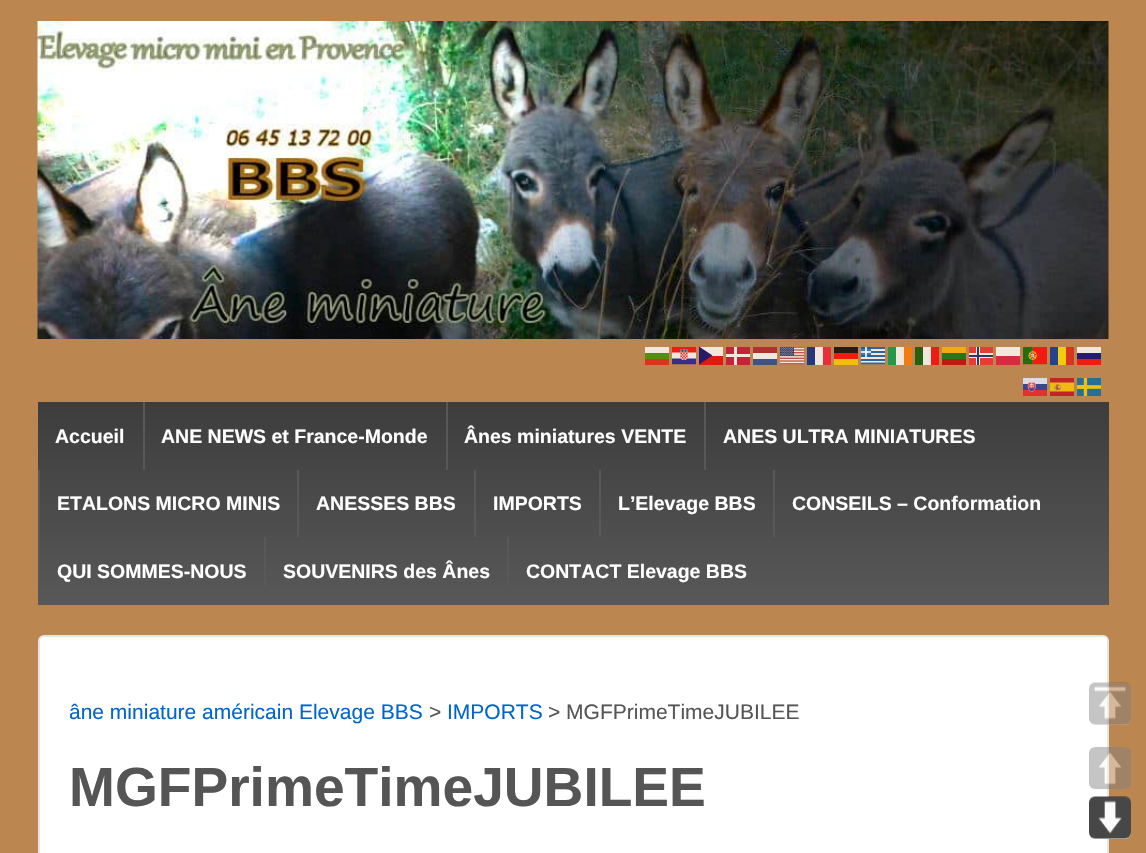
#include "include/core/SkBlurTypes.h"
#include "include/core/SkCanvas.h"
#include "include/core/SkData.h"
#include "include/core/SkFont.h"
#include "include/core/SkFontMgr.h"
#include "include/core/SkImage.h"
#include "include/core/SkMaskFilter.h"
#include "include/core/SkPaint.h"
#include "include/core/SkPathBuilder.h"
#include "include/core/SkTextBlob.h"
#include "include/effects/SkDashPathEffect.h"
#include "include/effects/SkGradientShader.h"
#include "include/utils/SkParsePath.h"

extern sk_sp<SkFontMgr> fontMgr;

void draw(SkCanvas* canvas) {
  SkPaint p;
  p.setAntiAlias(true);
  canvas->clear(SkColorSetRGB(188, 134, 81));
  canvas->drawImageRect(SkImages::DeferredFromEncodedData(SkData::MakeFromFileName("images/1.png")), SkRect::MakeLTRB(37, 21, 1109, 339), SkSamplingOptions());
  p.setColor(SkColorSetRGB(242, 231, 220));
  canvas->drawRect(SkRect::MakeLTRB(645, 347, 669, 353), p);
  canvas->drawImageRect(SkImages::DeferredFromEncodedData(SkData::MakeFromFileName("images/2.png")), SkRect::MakeLTRB(672, 347, 696, 365), SkSamplingOptions());
  canvas->drawRect(SkRect::MakeLTRB(699, 347, 723, 356), p);
  p.setColor(SkColorSetRGB(223, 27, 16));
  canvas->drawRect(SkRect::MakeLTRB(699, 356, 723, 365), p);
  p.setColor(SkColorSetRGB(38, 27, 105));
  canvas->drawPath(SkPathBuilder(SkPathFillType::kEvenOdd).moveTo(699, 346.5f).lineTo(712.5f, 355.5f).lineTo(699, 364.5f).close().detach(), p);
  p.setColor(SkColorSetRGB(196, 36, 55));
  canvas->drawRect(SkRect::MakeLTRB(726, 347, 750, 365), p);
  p.setColor(SkColorSetRGB(242, 231, 220));
  canvas->drawRect(SkRect::MakeLTRB(734, 347, 737, 365), p);
  p.setColor(SkColorSetRGB(177, 49, 48));
  canvas->drawRect(SkRect::MakeLTRB(753, 347, 777, 353), p);
  canvas->drawImageRect(SkImages::DeferredFromEncodedData(SkData::MakeFromFileName("images/3.png")), SkRect::MakeLTRB(780, 347, 804, 365), SkSamplingOptions());
  p.setColor(SkColorSetRGB(38, 57, 118));
  canvas->drawRect(SkRect::MakeLTRB(807, 347, 815, 365), p);
  p.setColor(SkColorSetRGB(242, 231, 220));
  canvas->drawRect(SkRect::MakeLTRB(815, 347, 823, 365), p);
  p.setColor(SkColorSetRGB(232, 46, 55));
  canvas->drawRect(SkRect::MakeLTRB(823, 347, 831, 365), p);
  p.setColor(SkColorSetRGB(38, 27, 16));
  canvas->drawRect(SkRect::MakeLTRB(834, 347, 858, 353), p);
  canvas->drawImageRect(SkImages::DeferredFromEncodedData(SkData::MakeFromFileName("images/4.png")), SkRect::MakeLTRB(861, 347, 885, 365), SkSamplingOptions());
  p.setColor(SkColorSetRGB(38, 150, 75));
  canvas->drawRect(SkRect::MakeLTRB(888, 347, 896, 365), p);
  p.setColor(SkColorSetRGB(242, 231, 220));
  canvas->drawRect(SkRect::MakeLTRB(896, 347, 904, 365), p);
  p.setColor(SkColorSetRGB(242, 124, 16));
  canvas->drawRect(SkRect::MakeLTRB(904, 347, 912, 365), p);
  p.setColor(SkColorSetRGB(38, 96, 16));
  canvas->drawRect(SkRect::MakeLTRB(915, 347, 923, 365), p);
  p.setColor(SkColorSetRGB(242, 231, 220));
  canvas->drawRect(SkRect::MakeLTRB(923, 347, 931, 365), p);
  p.setColor(SkColorSetRGB(239, 27, 16));
  canvas->drawRect(SkRect::MakeLTRB(931, 347, 939, 365), p);
  p.setColor(SkColorSetRGB(242, 170, 16));
  canvas->drawRect(SkRect::MakeLTRB(942, 347, 966, 353), p);
  p.setColor(SkColorSetRGB(229, 61, 52));
  canvas->drawRect(SkRect::MakeLTRB(969, 347, 993, 365), p);
  p.setColor(SkColorSetRGB(242, 231, 220));
  canvas->drawRect(SkRect::MakeLTRB(976, 347, 980, 365), p);
  canvas->drawRect(SkRect::MakeLTRB(969, 353, 993, 358), p);
  p.setColor(SkColorSetRGB(38, 59, 99));
  canvas->drawRect(SkRect::MakeLTRB(977, 347, 979, 365), p);
  p.setColor(SkColorSetRGB(242, 231, 220));
  canvas->drawRect(SkRect::MakeLTRB(996, 347, 1020, 356), p);
  canvas->drawImageRect(SkImages::DeferredFromEncodedData(SkData::MakeFromFileName("images/5.png")), SkRect::MakeLTRB(1023, 347, 1047, 365), SkSamplingOptions());
  p.setColor(SkColorSetRGB(38, 66, 141));
  canvas->drawRect(SkRect::MakeLTRB(1050, 347, 1058, 365), p);
  p.setColor(SkColorSetRGB(242, 204, 16));
  canvas->drawRect(SkRect::MakeLTRB(1058, 347, 1066, 365), p);
  p.setColor(SkColorSetRGB(215, 53, 29));
  canvas->drawRect(SkRect::MakeLTRB(1066, 347, 1074, 365), p);
  p.setColor(SkColorSetRGB(242, 231, 220));
  canvas->drawRect(SkRect::MakeLTRB(1077, 347, 1101, 353), p);
  p.setColor(SkColorSetRGB(77, 145, 16));
  canvas->drawRect(SkRect::MakeLTRB(645, 353, 669, 359), p);
  p.setColor(SkColorSetRGB(242, 231, 220));
  canvas->drawRect(SkRect::MakeLTRB(726, 354, 750, 357), p);
  canvas->drawRect(SkRect::MakeLTRB(753, 353, 777, 359), p);
  p.setColor(SkColorSetRGB(242, 27, 16));
  canvas->drawRect(SkRect::MakeLTRB(834, 353, 858, 359), p);
  p.setColor(SkColorSetRGB(38, 119, 23));
  canvas->drawRect(SkRect::MakeLTRB(942, 353, 966, 359), p);
  p.setColor(SkColorSetRGB(38, 28, 117));
  canvas->drawRect(SkRect::MakeLTRB(1077, 353, 1101, 359), p);
  p.setColor(SkColorSetRGB(215, 53, 29));
  canvas->drawRect(SkRect::MakeLTRB(645, 359, 669, 365), p);
  p.setColor(SkColorSetRGB(64, 83, 127));
  canvas->drawRect(SkRect::MakeLTRB(753, 359, 777, 365), p);
  p.setColor(SkColorSetRGB(242, 190, 16));
  canvas->drawRect(SkRect::MakeLTRB(834, 359, 858, 365), p);
  p.setColor(SkColorSetRGB(190, 27, 16));
  canvas->drawRect(SkRect::MakeLTRB(942, 359, 966, 365), p);
  p.setColor(SkColorSetRGB(38, 59, 99));
  canvas->drawRect(SkRect::MakeLTRB(969, 355, 993, 357), p);
  p.setColor(SkColorSetRGB(214, 43, 64));
  canvas->drawRect(SkRect::MakeLTRB(996, 356, 1020, 365), p);
  p.setColor(SkColorSetRGB(241, 28, 17));
  canvas->drawRect(SkRect::MakeLTRB(1077, 359, 1101, 365), p);
  canvas->drawImageRect(SkImages::DeferredFromEncodedData(SkData::MakeFromFileName("images/6.png")), SkRect::MakeLTRB(1023, 378, 1047, 396), SkSamplingOptions());
  canvas->drawImageRect(SkImages::DeferredFromEncodedData(SkData::MakeFromFileName("images/7.png")), SkRect::MakeLTRB(1050, 378, 1074, 396), SkSamplingOptions());
  canvas->drawImageRect(SkImages::DeferredFromEncodedData(SkData::MakeFromFileName("images/8.png")), SkRect::MakeLTRB(1077, 378, 1101, 396), SkSamplingOptions());
  {
    const SkColor colors[] = {SkColorSetRGB(88, 88, 88), SkColorSetRGB(61, 61, 61)};
    const float stops[] = {0, 1};
    const SkPoint ends[] = {{573, 605}, {573, 402}};
    p.setShader(SkGradientShader::MakeLinear(ends, colors, stops, 2, SkTileMode::kClamp));
    p.setAlpha(255);
  }
  canvas->drawRect(SkRect::MakeLTRB(38, 402, 1109, 605), p);
  p.setShader(nullptr);
  p.setColor(SkColorSetRGB(88, 88, 88));
  canvas->drawRect(SkRect::MakeLTRB(143, 402, 145, 470), p);
  canvas->drawRect(SkRect::MakeLTRB(446, 402, 448, 470), p);
  canvas->drawRect(SkRect::MakeLTRB(704, 402, 706, 470), p);
  canvas->drawRect(SkRect::MakeLTRB(38, 470, 40, 586), p);
  canvas->drawRect(SkRect::MakeLTRB(297, 470, 299, 537), p);
  canvas->drawRect(SkRect::MakeLTRB(474, 470, 476, 537), p);
  canvas->drawRect(SkRect::MakeLTRB(599, 470, 601, 537), p);
  canvas->drawRect(SkRect::MakeLTRB(773, 470, 775, 537), p);
  canvas->drawRect(SkRect::MakeLTRB(264, 537, 266, 586), p);
  canvas->drawRect(SkRect::MakeLTRB(507, 537, 509, 586), p);
  p.setColor(SK_ColorWHITE);
  canvas->drawRoundRect(SkRect::MakeLTRB(39, 636, 1108, 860), 5, 5, p);
  p.setStyle(SkPaint::kStroke_Style);
  p.setStrokeWidth(2);
  p.setColor(SkColorSetRGB(229, 229, 229));
  canvas->drawRoundRect(SkRect::MakeLTRB(39, 636, 1108, 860), 5, 5, p);
  p.setStyle(SkPaint::kFill_Style);
  p.setColor(SkColorSetARGB(77, 239, 239, 239));
  canvas->drawRoundRect(SkRect::MakeLTRB(1089, 683, 1131, 725), 6, 6, p);
  canvas->drawImageRect(SkImages::DeferredFromEncodedData(SkData::MakeFromFileName("images/9.png")), SkRect::MakeLTRB(1089, 682, 1131, 725), SkSamplingOptions());
  canvas->drawRoundRect(SkRect::MakeLTRB(1089, 747, 1131, 789), 6, 6, p);
  canvas->drawImageRect(SkImages::DeferredFromEncodedData(SkData::MakeFromFileName("images/10.png")), SkRect::MakeLTRB(1089, 747, 1131, 789), SkSamplingOptions());
  p.setColor(SkColorSetRGB(239, 239, 239));
  canvas->drawRoundRect(SkRect::MakeLTRB(1089, 797, 1131, 839), 6, 6, p);
  canvas->drawImageRect(SkImages::DeferredFromEncodedData(SkData::MakeFromFileName("images/11.png")), SkRect::MakeLTRB(1089, 796, 1131, 839), SkSamplingOptions());
  SkFont font1(fontMgr->matchFamilyStyle("Liberation Sans", SkFontStyle::Bold()), 19.5f);
  font1.setSubpixel(true);
  p.setColor(SK_ColorWHITE);
  canvas->drawString("Accueil", 55, 443, font1, p);
  canvas->drawString("ANE NEWS et France-Monde", 161, 443, font1, p);
  canvas->drawString("Ânes miniatures VENTE", 464, 443, font1, p);
  canvas->drawString("ANES ULTRA MINIATURES", 723, 443, font1, p);
  canvas->drawString("ETALONS MICRO MINIS", 57, 510, font1, p);
  canvas->drawString("ANESSES BBS", 316, 510, font1, p);
  canvas->drawString("IMPORTS", 493, 510, font1, p);
  canvas->drawString("L’Elevage BBS", 618, 510, font1, p);
  canvas->drawString("CONSEILS – Conformation", 792, 510, font1, p);
  canvas->drawString("QUI SOMMES-NOUS", 57, 578, font1, p);
  canvas->drawString("SOUVENIRS des Ânes", 283, 578, font1, p);
  canvas->drawString("CONTACT Elevage BBS", 526, 578, font1, p);
  SkFont font2(fontMgr->matchFamilyStyle("Liberation Sans", SkFontStyle::Normal()), 21);
  font2.setSubpixel(true);
  p.setColor(SkColorSetRGB(0, 102, 204));
  canvas->drawString("âne miniature américain Elevage BBS", 69, 719, font2, p);
  p.setColor(SkColorSetRGB(85, 85, 85));
  canvas->drawString(">", 429, 719, font2, p);
  p.setColor(SkColorSetRGB(0, 102, 204));
  canvas->drawString("IMPORTS", 447, 719, font2, p);
  p.setColor(SkColorSetRGB(85, 85, 85));
  canvas->drawString("> MGFPrimeTimeJUBILEE", 548, 719, font2, p);
  SkFont font3(fontMgr->matchFamilyStyle("Liberation Sans", SkFontStyle::Bold()), 55.1f);
  font3.setSubpixel(true);
  canvas->drawString("MGFPrimeTimeJUBILEE", 69, 806, font3, p);
}
